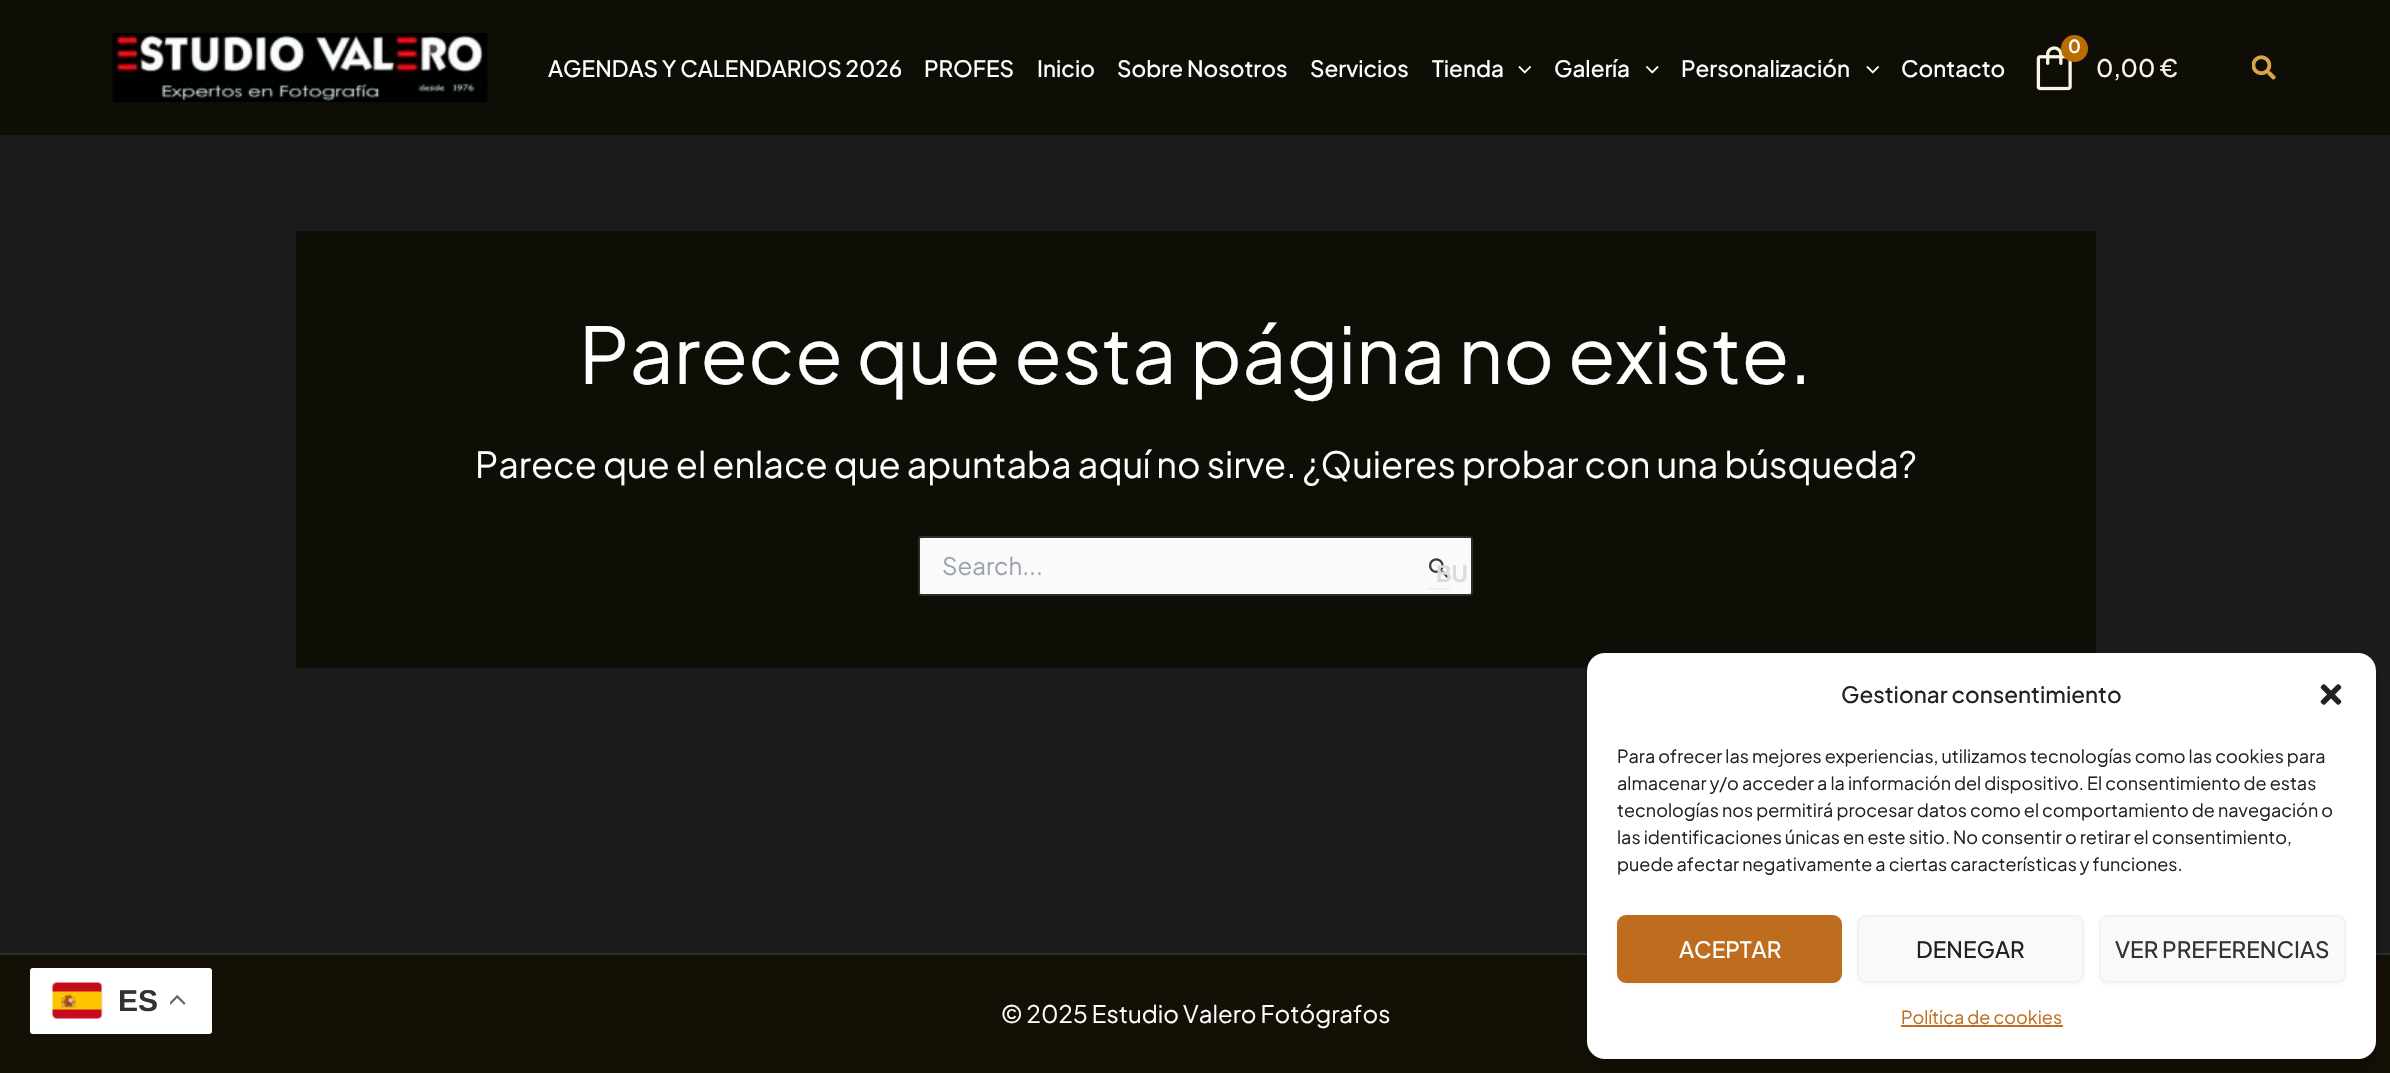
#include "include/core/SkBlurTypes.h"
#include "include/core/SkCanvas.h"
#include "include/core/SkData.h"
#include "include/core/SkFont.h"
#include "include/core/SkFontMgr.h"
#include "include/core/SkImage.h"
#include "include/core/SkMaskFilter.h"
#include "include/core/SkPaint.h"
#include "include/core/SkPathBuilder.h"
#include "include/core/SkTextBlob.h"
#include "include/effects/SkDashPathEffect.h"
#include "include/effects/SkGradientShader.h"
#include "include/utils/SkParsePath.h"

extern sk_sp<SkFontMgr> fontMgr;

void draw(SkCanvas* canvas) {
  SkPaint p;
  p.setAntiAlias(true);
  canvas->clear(SkColorSetRGB(27, 27, 27));
  p.setColor(SkColorSetRGB(14, 13, 6));
  canvas->drawRect(SkRect::MakeLTRB(0, 0, 2390, 135), p);
  canvas->drawImageRect(SkImages::DeferredFromEncodedData(SkData::MakeFromFileName("images/1.png")), SkRect::MakeLTRB(112, 33, 488, 102), SkSamplingOptions());
  canvas->drawImageRect(SkImages::DeferredFromEncodedData(SkData::MakeFromFileName("images/2.png")), SkRect::MakeLTRB(1518, 66, 1532, 74), SkSamplingOptions());
  canvas->drawImageRect(SkImages::DeferredFromEncodedData(SkData::MakeFromFileName("images/3.png")), SkRect::MakeLTRB(1646, 66, 1659, 74), SkSamplingOptions());
  canvas->drawImageRect(SkImages::DeferredFromEncodedData(SkData::MakeFromFileName("images/2.png")), SkRect::MakeLTRB(1866, 66, 1880, 74), SkSamplingOptions());
  canvas->drawImageRect(SkImages::DeferredFromEncodedData(SkData::MakeFromFileName("images/4.png")), SkRect::MakeLTRB(2036, 46, 2072, 91), SkSamplingOptions());
  p.setColor(SkColorSetRGB(186, 108, 2));
  canvas->drawCircle(2074.5f, 48.5f, 13.5f, p);
  canvas->drawImageRect(SkImages::DeferredFromEncodedData(SkData::MakeFromFileName("images/5.png")), SkRect::MakeLTRB(2252, 55, 2276, 80), SkSamplingOptions());
  p.setColor(SkColorSetRGB(14, 13, 6));
  canvas->drawRect(SkRect::MakeLTRB(296, 231, 2096, 668), p);
  p.setColor(SkColorSetRGB(250, 250, 250));
  canvas->drawRoundRect(SkRect::MakeLTRB(919, 537, 1472, 595), 2, 2, p);
  p.setStyle(SkPaint::kStroke_Style);
  p.setStrokeWidth(2);
  p.setColor(SkColorSetRGB(46, 45, 42));
  canvas->drawRoundRect(SkRect::MakeLTRB(919, 537, 1472, 595), 2, 2, p);
  canvas->save();
  canvas->clipRect(SkRect::MakeLTRB(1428, 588, 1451, 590));
  p.setStyle(SkPaint::kFill_Style);
  p.setColor(SkColorSetARGB(13, 0, 0, 0));
  p.setMaskFilter(SkMaskFilter::MakeBlur(kNormal_SkBlurStyle, 1.5f));
  canvas->drawRect(SkRect::MakeLTRB(1428, 554, 1451, 590), p);
  p.setMaskFilter(nullptr);
  canvas->restore();
  canvas->drawImageRect(SkImages::DeferredFromEncodedData(SkData::MakeFromFileName("images/6.png")), SkRect::MakeLTRB(1429, 558, 1448, 578), SkSamplingOptions());
  p.setColor(SkColorSetRGB(20, 16, 6));
  canvas->drawRect(SkRect::MakeLTRB(0, 955, 2390, 1073), p);
  p.setColor(SkColorSetRGB(46, 45, 42));
  canvas->drawRect(SkRect::MakeLTRB(0, 953, 2390, 955), p);
  p.setColor(SK_ColorWHITE);
  canvas->drawRoundRect(SkRect::MakeLTRB(30, 968, 212, 1034), 3, 3, p);
  canvas->drawImageRect(SkImages::DeferredFromEncodedData(SkData::MakeFromFileName("images/7.png")), SkRect::MakeLTRB(52, 982, 103, 1019), SkSamplingOptions());
  canvas->drawImageRect(SkImages::DeferredFromEncodedData(SkData::MakeFromFileName("images/8.png")), SkRect::MakeLTRB(170, 995, 186, 1005), SkSamplingOptions());
  p.setColor(SkColorSetARGB(59, 0, 0, 0));
  p.setMaskFilter(SkMaskFilter::MakeBlur(kNormal_SkBlurStyle, 4.5f));
  canvas->drawRoundRect(SkRect::MakeLTRB(1587, 662, 2376, 1068), 18, 18, p);
  p.setMaskFilter(nullptr);
  p.setColor(SK_ColorWHITE);
  canvas->drawRoundRect(SkRect::MakeLTRB(1587, 653, 2376, 1059), 18, 18, p);
  canvas->drawImageRect(SkImages::DeferredFromEncodedData(SkData::MakeFromFileName("images/9.png")), SkRect::MakeLTRB(2320, 684, 2342, 705), SkSamplingOptions());
  p.setColor(SkColorSetARGB(13, 0, 0, 0));
  p.setMaskFilter(SkMaskFilter::MakeBlur(kNormal_SkBlurStyle, 1.5f));
  canvas->drawRoundRect(SkRect::MakeLTRB(1617, 917, 1842, 984), 9, 9, p);
  p.setMaskFilter(nullptr);
  p.setColor(SkColorSetRGB(190, 109, 30));
  canvas->drawRoundRect(SkRect::MakeLTRB(1618, 916, 1841, 982), 8, 8, p);
  p.setStyle(SkPaint::kStroke_Style);
  canvas->drawRoundRect(SkRect::MakeLTRB(1618, 916, 1841, 982), 8, 8, p);
  p.setStyle(SkPaint::kFill_Style);
  p.setColor(SkColorSetARGB(13, 0, 0, 0));
  p.setMaskFilter(SkMaskFilter::MakeBlur(kNormal_SkBlurStyle, 1.5f));
  canvas->drawRoundRect(SkRect::MakeLTRB(1857, 917, 2084, 984), 9, 9, p);
  p.setMaskFilter(nullptr);
  p.setColor(SkColorSetRGB(249, 249, 249));
  canvas->drawRoundRect(SkRect::MakeLTRB(1858, 916, 2083, 982), 8, 8, p);
  p.setStyle(SkPaint::kStroke_Style);
  p.setColor(SkColorSetRGB(242, 242, 242));
  canvas->drawRoundRect(SkRect::MakeLTRB(1858, 916, 2083, 982), 8, 8, p);
  p.setStyle(SkPaint::kFill_Style);
  p.setColor(SkColorSetARGB(13, 0, 0, 0));
  p.setMaskFilter(SkMaskFilter::MakeBlur(kNormal_SkBlurStyle, 1.5f));
  canvas->drawRoundRect(SkRect::MakeLTRB(2099, 917, 2346, 984), 9, 9, p);
  p.setMaskFilter(nullptr);
  p.setColor(SkColorSetRGB(249, 249, 249));
  canvas->drawRoundRect(SkRect::MakeLTRB(2100, 916, 2345, 982), 8, 8, p);
  p.setStyle(SkPaint::kStroke_Style);
  p.setColor(SkColorSetRGB(242, 242, 242));
  canvas->drawRoundRect(SkRect::MakeLTRB(2100, 916, 2345, 982), 8, 8, p);
  p.setStyle(SkPaint::kFill_Style);
  p.setColor(SkColorSetRGB(190, 109, 30));
  canvas->drawRect(SkRect::MakeLTRB(1901, 1025, 2063, 1027), p);
  SkFont font1(fontMgr->matchFamilyStyle("Plus Jakarta Sans", SkFontStyle(500, SkFontStyle::kNormal_Width, SkFontStyle::kUpright_Slant)), 22.5f);
  font1.setSubpixel(true);
  p.setColor(SK_ColorWHITE);
  canvas->drawString("AGENDAS Y CALENDARIOS 2026", 548, 77, font1, p);
  canvas->drawString("PROFES", 924, 77, font1, p);
  canvas->drawString("Inicio", 1037, 77, font1, p);
  canvas->drawString("Sobre Nosotros", 1117, 77, font1, p);
  canvas->drawString("Servicios", 1310, 77, font1, p);
  canvas->drawString("Tienda", 1432, 77, font1, p);
  canvas->drawString("Galería", 1554, 77, font1, p);
  canvas->drawString("Personalización", 1681, 77, font1, p);
  canvas->drawString("Contacto", 1901, 77, font1, p);
  SkFont font2(fontMgr->matchFamilyStyle("Plus Jakarta Sans", SkFontStyle(600, SkFontStyle::kNormal_Width, SkFontStyle::kUpright_Slant)), 18);
  font2.setSubpixel(true);
  canvas->drawString("0", 2068, 53, font2, p);
  SkFont font3(fontMgr->matchFamilyStyle("Plus Jakarta Sans", SkFontStyle(500, SkFontStyle::kNormal_Width, SkFontStyle::kUpright_Slant)), 24);
  font3.setSubpixel(true);
  p.setColor(SkColorSetRGB(250, 245, 229));
  canvas->drawString("0,00 €", 2096, 77, font3, p);
  SkFont font4(fontMgr->matchFamilyStyle("Plus Jakarta Sans", SkFontStyle::Normal()), 78);
  font4.setSubpixel(true);
  p.setColor(SK_ColorWHITE);
  canvas->drawString("Parece que esta página no existe.", 579, 384, font4, p);
  SkFont font5(fontMgr->matchFamilyStyle("Plus Jakarta Sans", SkFontStyle::Normal()), 36);
  font5.setSubpixel(true);
  canvas->drawString("Parece que el enlace que apuntaba aquí no sirve. ¿Quieres probar con una búsqueda?", 475, 478, font5, p);
  SkFont font6(fontMgr->matchFamilyStyle("Plus Jakarta Sans", SkFontStyle::Normal()), 24);
  font6.setSubpixel(true);
  p.setColor(SkColorSetRGB(156, 163, 175));
  canvas->drawString("Search...", 942, 575, font6, p);
  SkFont font7(fontMgr->matchFamilyStyle("Plus Jakarta Sans", SkFontStyle::Bold()), 22.5f);
  font7.setSubpixel(true);
  p.setColor(SkColorSetRGB(219, 219, 219));
  canvas->drawString("BU", 1436, 582, font7, p);
  p.setColor(SK_ColorWHITE);
  canvas->drawString("© 2025 Estudio Valero Fotógrafos", 1001, 1023, font6, p);
  SkFont font8(fontMgr->matchFamilyStyle("Liberation Sans", SkFontStyle::Bold()), 30);
  font8.setSubpixel(true);
  p.setColor(SkColorSetRGB(51, 51, 51));
  canvas->drawString("ES", 118, 1011, font8, p);
  p.setColor(SkColorSetRGB(34, 34, 34));
  canvas->drawString("Gestionar consentimiento", 1841, 703, font1, p);
  SkFont font9(fontMgr->matchFamilyStyle("Plus Jakarta Sans", SkFontStyle::Normal()), 18);
  font9.setSubpixel(true);
  canvas->drawString("Para ofrecer las mejores experiencias, utilizamos tecnologías como las cookies para", 1617, 763, font9, p);
  canvas->drawString("almacenar y/o acceder a la información del dispositivo. El consentimiento de estas", 1617, 790, font9, p);
  canvas->drawString("tecnologías nos permitirá procesar datos como el comportamiento de navegación o", 1617, 817, font9, p);
  canvas->drawString("las identificaciones únicas en este sitio. No consentir o retirar el consentimiento,", 1617, 844, font9, p);
  canvas->drawString("puede afectar negativamente a ciertas características y funciones.", 1617, 871, font9, p);
  p.setColor(SK_ColorWHITE);
  canvas->drawString("ACEPTAR", 1679, 958, font1, p);
  p.setColor(SkColorSetRGB(34, 34, 34));
  canvas->drawString("DENEGAR", 1916, 958, font1, p);
  p.setColor(SkColorSetRGB(51, 51, 51));
  canvas->drawString("VER PREFERENCIAS", 2115, 958, font1, p);
  p.setColor(SkColorSetRGB(190, 109, 30));
  canvas->drawString("Política de cookies", 1901, 1024, font9, p);
}
